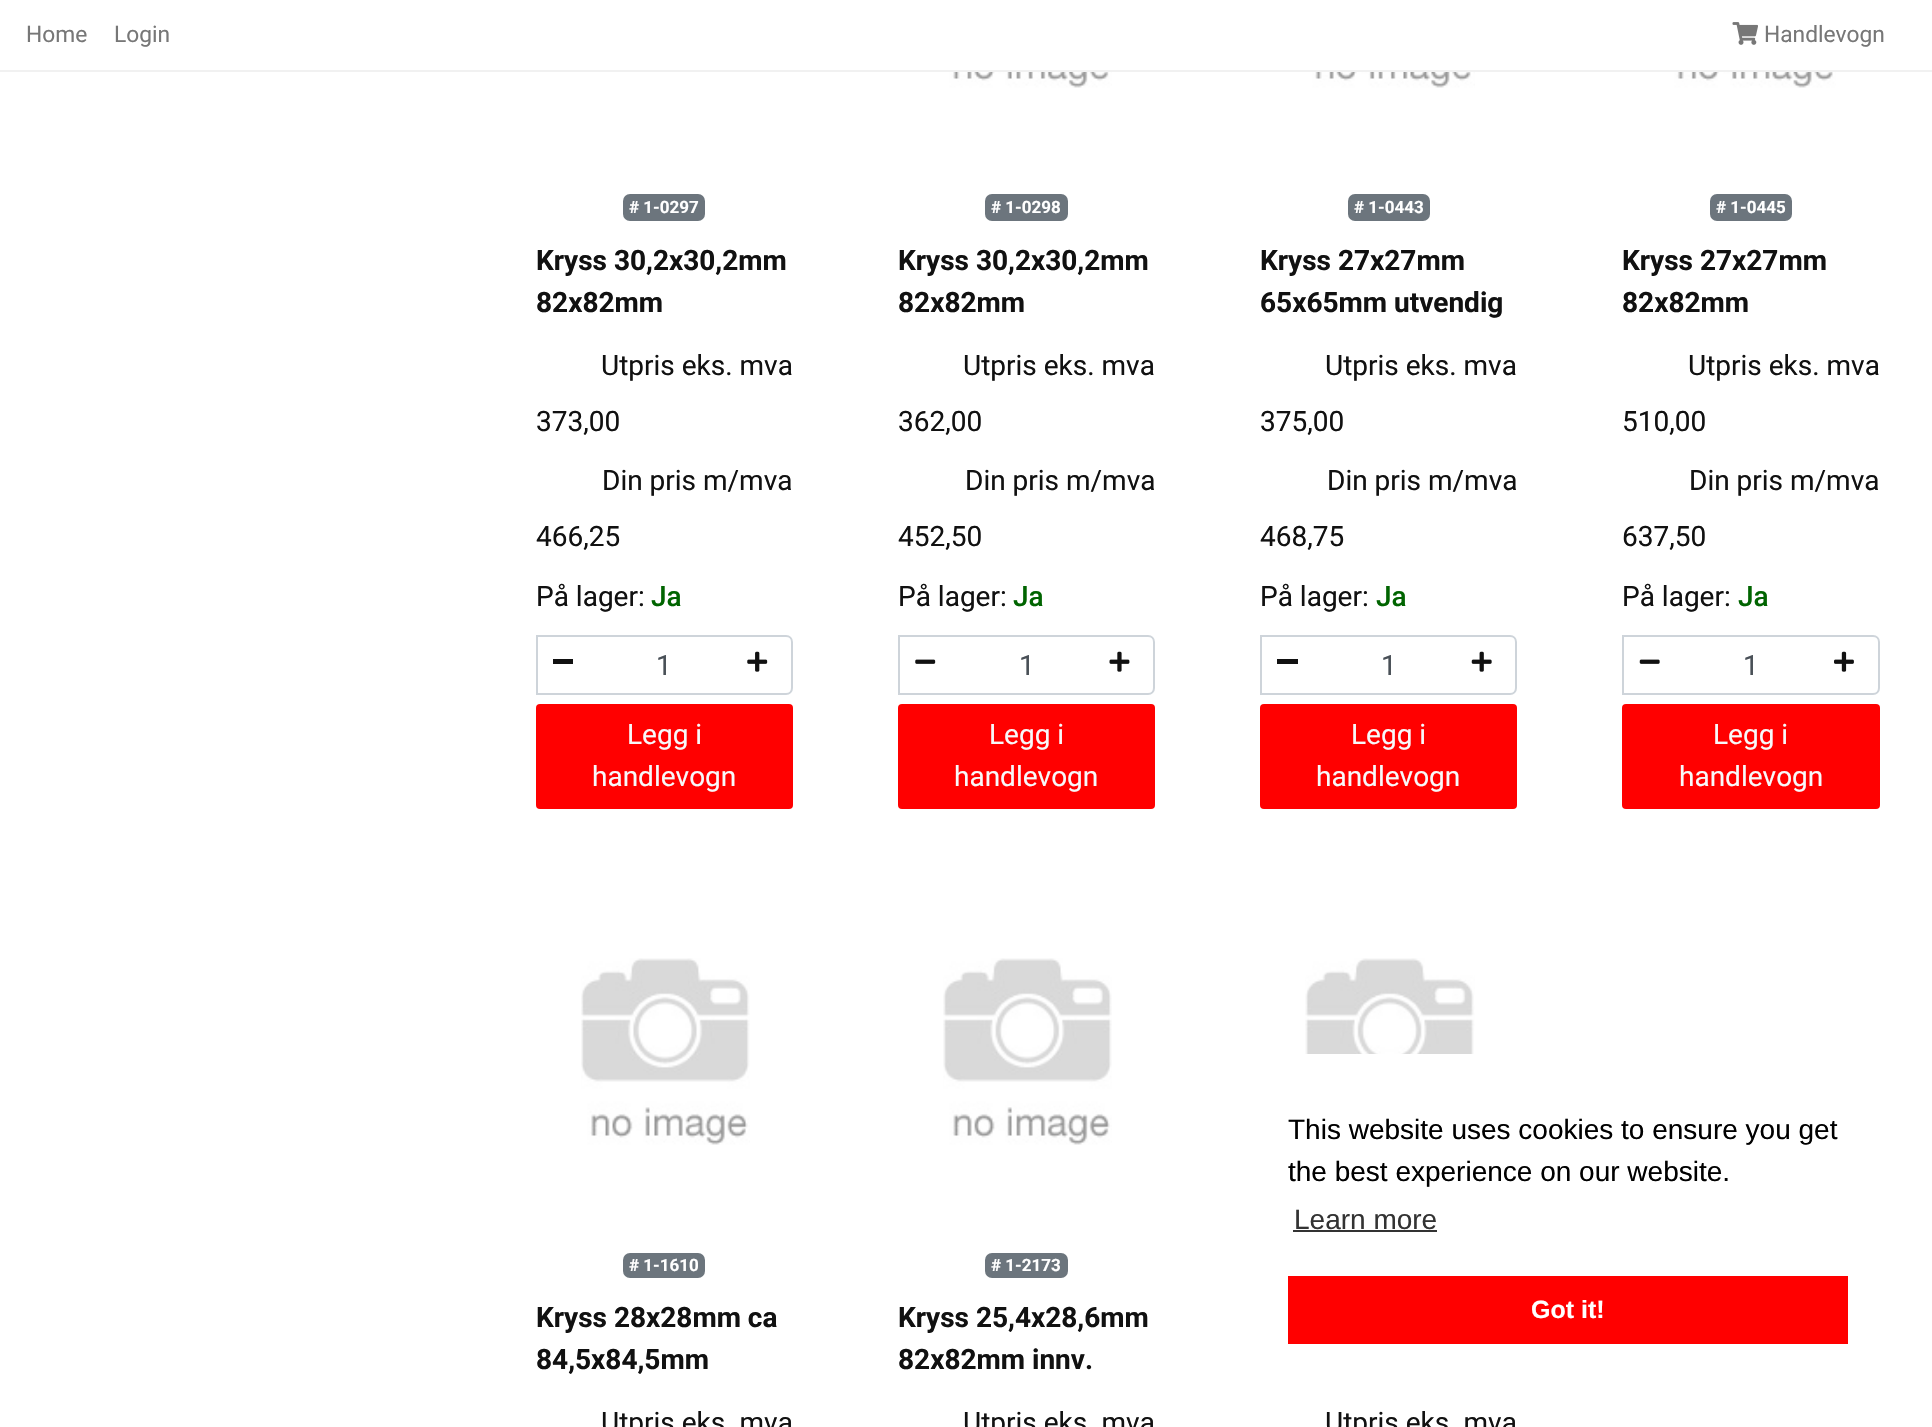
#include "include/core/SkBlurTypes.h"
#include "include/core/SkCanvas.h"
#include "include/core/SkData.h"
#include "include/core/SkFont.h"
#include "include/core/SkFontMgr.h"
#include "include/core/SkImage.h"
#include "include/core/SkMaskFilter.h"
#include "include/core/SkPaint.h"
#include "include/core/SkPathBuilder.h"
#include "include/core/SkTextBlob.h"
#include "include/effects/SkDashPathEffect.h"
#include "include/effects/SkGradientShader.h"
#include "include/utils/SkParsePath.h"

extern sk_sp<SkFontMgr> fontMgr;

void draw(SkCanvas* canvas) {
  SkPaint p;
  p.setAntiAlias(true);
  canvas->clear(SK_ColorWHITE);
  p.setColor(SkColorSetRGB(241, 241, 241));
  canvas->drawRect(SkRect::MakeLTRB(0, 70, 1932, 72), p);
  canvas->drawImageRect(SkImages::DeferredFromEncodedData(SkData::MakeFromFileName("images/1.png")), SkRect::MakeLTRB(1732, 22, 1758, 45), SkSamplingOptions());
  p.setColor(SkColorSetRGB(108, 117, 125));
  canvas->drawRoundRect(SkRect::MakeLTRB(623, 194, 705, 221), 7, 7, p);
  p.setStyle(SkPaint::kStroke_Style);
  p.setStrokeWidth(2);
  p.setColor(SkColorSetRGB(206, 212, 218));
  canvas->drawPath(SkPathBuilder().moveTo(537, 636).lineTo(786, 636).cubicTo(789.5f, 636, 792, 638.5f, 792, 642).lineTo(792, 688).cubicTo(792, 691.5f, 789.5f, 694, 786, 694).lineTo(537, 694).close().detach(), p);
  p.setStyle(SkPaint::kFill_Style);
  p.setColor(SkColorSetRGB(17, 17, 17));
  canvas->drawRect(SkRect::MakeLTRB(553, 659, 573, 664), p);
  canvas->drawImageRect(SkImages::DeferredFromEncodedData(SkData::MakeFromFileName("images/2.png")), SkRect::MakeLTRB(747, 651, 768, 672), SkSamplingOptions());
  p.setColor(SkColorSetRGB(255, 0, 0));
  canvas->drawRoundRect(SkRect::MakeLTRB(536, 704, 793, 809), 4, 4, p);
  canvas->drawImageRect(SkImages::DeferredFromEncodedData(SkData::MakeFromFileName("images/3.png")), SkRect::MakeLTRB(943, 72, 1112, 88), SkSamplingOptions());
  p.setColor(SkColorSetRGB(108, 117, 125));
  canvas->drawRoundRect(SkRect::MakeLTRB(985, 194, 1068, 221), 7, 7, p);
  p.setStyle(SkPaint::kStroke_Style);
  p.setColor(SkColorSetRGB(206, 212, 218));
  canvas->drawPath(SkPathBuilder().moveTo(899, 636).lineTo(1148, 636).cubicTo(1151.5f, 636, 1154, 638.5f, 1154, 642).lineTo(1154, 688).cubicTo(1154, 691.5f, 1151.5f, 694, 1148, 694).lineTo(899, 694).close().detach(), p);
  canvas->drawImageRect(SkImages::DeferredFromEncodedData(SkData::MakeFromFileName("images/4.png")), SkRect::MakeLTRB(915, 659, 936, 664), SkSamplingOptions());
  canvas->drawImageRect(SkImages::DeferredFromEncodedData(SkData::MakeFromFileName("images/5.png")), SkRect::MakeLTRB(1109, 651, 1130, 672), SkSamplingOptions());
  p.setStyle(SkPaint::kFill_Style);
  p.setColor(SkColorSetRGB(255, 0, 0));
  canvas->drawRoundRect(SkRect::MakeLTRB(898, 704, 1155, 809), 4, 4, p);
  canvas->drawImageRect(SkImages::DeferredFromEncodedData(SkData::MakeFromFileName("images/6.png")), SkRect::MakeLTRB(1305, 72, 1475, 88), SkSamplingOptions());
  p.setColor(SkColorSetRGB(108, 117, 125));
  canvas->drawRoundRect(SkRect::MakeLTRB(1348, 194, 1430, 221), 7, 7, p);
  p.setStyle(SkPaint::kStroke_Style);
  p.setColor(SkColorSetRGB(206, 212, 218));
  canvas->drawPath(SkPathBuilder().moveTo(1261, 636).lineTo(1510, 636).cubicTo(1513.5f, 636, 1516, 638.5f, 1516, 642).lineTo(1516, 688).cubicTo(1516, 691.5f, 1513.5f, 694, 1510, 694).lineTo(1261, 694).close().detach(), p);
  p.setStyle(SkPaint::kFill_Style);
  p.setColor(SkColorSetRGB(17, 17, 17));
  canvas->drawRect(SkRect::MakeLTRB(1277, 659, 1298, 664), p);
  canvas->drawImageRect(SkImages::DeferredFromEncodedData(SkData::MakeFromFileName("images/7.png")), SkRect::MakeLTRB(1471, 651, 1492, 672), SkSamplingOptions());
  p.setColor(SkColorSetRGB(255, 0, 0));
  canvas->drawRoundRect(SkRect::MakeLTRB(1260, 704, 1517, 809), 4, 4, p);
  canvas->drawImageRect(SkImages::DeferredFromEncodedData(SkData::MakeFromFileName("images/8.png")), SkRect::MakeLTRB(1668, 72, 1836, 88), SkSamplingOptions());
  p.setColor(SkColorSetRGB(108, 117, 125));
  canvas->drawRoundRect(SkRect::MakeLTRB(1710, 194, 1792, 221), 7, 7, p);
  p.setStyle(SkPaint::kStroke_Style);
  p.setColor(SkColorSetRGB(206, 212, 218));
  canvas->drawPath(SkPathBuilder().moveTo(1623, 636).lineTo(1873, 636).cubicTo(1876.5f, 636, 1879, 638.5f, 1879, 642).lineTo(1879, 688).cubicTo(1879, 691.5f, 1876.5f, 694, 1873, 694).lineTo(1623, 694).close().detach(), p);
  canvas->drawImageRect(SkImages::DeferredFromEncodedData(SkData::MakeFromFileName("images/9.png")), SkRect::MakeLTRB(1639, 659, 1660, 664), SkSamplingOptions());
  canvas->drawImageRect(SkImages::DeferredFromEncodedData(SkData::MakeFromFileName("images/10.png")), SkRect::MakeLTRB(1834, 651, 1854, 672), SkSamplingOptions());
  p.setStyle(SkPaint::kFill_Style);
  p.setColor(SkColorSetRGB(255, 0, 0));
  canvas->drawRoundRect(SkRect::MakeLTRB(1622, 704, 1880, 809), 4, 4, p);
  canvas->drawImageRect(SkImages::DeferredFromEncodedData(SkData::MakeFromFileName("images/11.png")), SkRect::MakeLTRB(581, 958, 750, 1145), SkSamplingOptions());
  p.setColor(SkColorSetRGB(108, 117, 125));
  canvas->drawRoundRect(SkRect::MakeLTRB(623, 1253, 705, 1278), 7, 7, p);
  canvas->drawImageRect(SkImages::DeferredFromEncodedData(SkData::MakeFromFileName("images/12.png")), SkRect::MakeLTRB(943, 958, 1112, 1145), SkSamplingOptions());
  canvas->drawRoundRect(SkRect::MakeLTRB(985, 1253, 1068, 1278), 7, 7, p);
  canvas->drawImageRect(SkImages::DeferredFromEncodedData(SkData::MakeFromFileName("images/13.png")), SkRect::MakeLTRB(1305, 958, 1475, 1054), SkSamplingOptions());
  p.setColor(SkColorSetRGB(51, 51, 51));
  canvas->drawRect(SkRect::MakeLTRB(1293, 1230, 1437, 1232), p);
  p.setColor(SkColorSetRGB(255, 0, 0));
  canvas->drawRect(SkRect::MakeLTRB(1288, 1276, 1848, 1344), p);
  SkFont font1(fontMgr->matchFamilyStyle("Roboto", SkFontStyle::Normal()), 22.75f);
  font1.setSubpixel(true);
  p.setColor(SkColorSetRGB(119, 119, 119));
  canvas->drawString("Home", 26, 42, font1, p);
  canvas->drawString("Login", 114, 42, font1, p);
  canvas->drawString("Handlevogn", 1764, 42, font1, p);
  SkFont font2(fontMgr->matchFamilyStyle("Roboto", SkFontStyle::Bold()), 17);
  font2.setSubpixel(true);
  p.setColor(SK_ColorWHITE);
  canvas->drawString("# 1-0297", 629, 213, font2, p);
  SkFont font3(fontMgr->matchFamilyStyle("Roboto", SkFontStyle::Bold()), 28);
  font3.setSubpixel(true);
  p.setColor(SkColorSetRGB(17, 17, 17));
  canvas->drawString("Kryss 30,2x30,2mm", 536, 270, font3, p);
  canvas->drawString("82x82mm", 536, 312, font3, p);
  SkFont font4(fontMgr->matchFamilyStyle("Roboto", SkFontStyle::Normal()), 28);
  font4.setSubpixel(true);
  canvas->drawString("Utpris eks. mva", 601, 375, font4, p);
  canvas->drawString("373,00", 536, 431, font4, p);
  canvas->drawString("Din pris m/mva", 602, 490, font4, p);
  canvas->drawString("466,25", 536, 546, font4, p);
  canvas->drawString("På lager:", 536, 606, font4, p);
  SkFont font5(fontMgr->matchFamilyStyle("Roboto", SkFontStyle(500, SkFontStyle::kNormal_Width, SkFontStyle::kUpright_Slant)), 28);
  font5.setSubpixel(true);
  p.setColor(SkColorSetRGB(0, 100, 0));
  canvas->drawString("Ja", 651, 606, font5, p);
  p.setColor(SkColorSetRGB(73, 80, 87));
  canvas->drawString("1", 656, 675, font4, p);
  p.setColor(SkColorSetRGB(248, 249, 250));
  canvas->drawString("Legg i", 627, 744, font4, p);
  canvas->drawString("handlevogn", 592, 786, font4, p);
  p.setColor(SK_ColorWHITE);
  canvas->drawString("# 1-0298", 991, 213, font2, p);
  p.setColor(SkColorSetRGB(17, 17, 17));
  canvas->drawString("Kryss 30,2x30,2mm", 898, 270, font3, p);
  canvas->drawString("82x82mm", 898, 312, font3, p);
  canvas->drawString("Utpris eks. mva", 963, 375, font4, p);
  canvas->drawString("362,00", 898, 431, font4, p);
  canvas->drawString("Din pris m/mva", 965, 490, font4, p);
  canvas->drawString("452,50", 898, 546, font4, p);
  canvas->drawString("På lager:", 898, 606, font4, p);
  p.setColor(SkColorSetRGB(0, 100, 0));
  canvas->drawString("Ja", 1013, 606, font5, p);
  p.setColor(SkColorSetRGB(73, 80, 87));
  canvas->drawString("1", 1019, 675, font4, p);
  p.setColor(SkColorSetRGB(248, 249, 250));
  canvas->drawString("Legg i", 989, 744, font4, p);
  canvas->drawString("handlevogn", 954, 786, font4, p);
  p.setColor(SK_ColorWHITE);
  canvas->drawString("# 1-0443", 1354, 213, font2, p);
  p.setColor(SkColorSetRGB(17, 17, 17));
  canvas->drawString("Kryss 27x27mm", 1260, 270, font3, p);
  canvas->drawString("65x65mm utvendig", 1260, 312, font3, p);
  canvas->drawString("Utpris eks. mva", 1325, 375, font4, p);
  canvas->drawString("375,00", 1260, 431, font4, p);
  canvas->drawString("Din pris m/mva", 1327, 490, font4, p);
  canvas->drawString("468,75", 1260, 546, font4, p);
  canvas->drawString("På lager:", 1260, 606, font4, p);
  p.setColor(SkColorSetRGB(0, 100, 0));
  canvas->drawString("Ja", 1376, 606, font5, p);
  p.setColor(SkColorSetRGB(73, 80, 87));
  canvas->drawString("1", 1381, 675, font4, p);
  p.setColor(SkColorSetRGB(248, 249, 250));
  canvas->drawString("Legg i", 1351, 744, font4, p);
  canvas->drawString("handlevogn", 1316, 786, font4, p);
  p.setColor(SK_ColorWHITE);
  canvas->drawString("# 1-0445", 1716, 213, font2, p);
  p.setColor(SkColorSetRGB(17, 17, 17));
  canvas->drawString("Kryss 27x27mm", 1622, 270, font3, p);
  canvas->drawString("82x82mm", 1622, 312, font3, p);
  canvas->drawString("Utpris eks. mva", 1688, 375, font4, p);
  canvas->drawString("510,00", 1622, 431, font4, p);
  canvas->drawString("Din pris m/mva", 1689, 490, font4, p);
  canvas->drawString("637,50", 1622, 546, font4, p);
  canvas->drawString("På lager:", 1622, 606, font4, p);
  p.setColor(SkColorSetRGB(0, 100, 0));
  canvas->drawString("Ja", 1738, 606, font5, p);
  p.setColor(SkColorSetRGB(73, 80, 87));
  canvas->drawString("1", 1743, 675, font4, p);
  p.setColor(SkColorSetRGB(248, 249, 250));
  canvas->drawString("Legg i", 1713, 744, font4, p);
  canvas->drawString("handlevogn", 1679, 786, font4, p);
  p.setColor(SK_ColorWHITE);
  canvas->drawString("# 1-1610", 629, 1271, font2, p);
  p.setColor(SkColorSetRGB(17, 17, 17));
  canvas->drawString("Kryss 28x28mm ca", 536, 1327, font3, p);
  canvas->drawString("84,5x84,5mm", 536, 1369, font3, p);
  canvas->drawString("Utpris eks. mva", 601, 1432, font4, p);
  p.setColor(SK_ColorWHITE);
  canvas->drawString("# 1-2173", 991, 1271, font2, p);
  p.setColor(SkColorSetRGB(17, 17, 17));
  canvas->drawString("Kryss 25,4x28,6mm", 898, 1327, font3, p);
  canvas->drawString("82x82mm innv.", 898, 1369, font3, p);
  canvas->drawString("Utpris eks. mva", 963, 1432, font4, p);
  canvas->drawString("Utpris eks. mva", 1325, 1432, font4, p);
  SkFont font6(fontMgr->matchFamilyStyle("Liberation Sans", SkFontStyle::Normal()), 28);
  font6.setSubpixel(true);
  p.setColor(SK_ColorBLACK);
  canvas->drawString("This website uses cookies to ensure you get", 1288, 1139, font6, p);
  canvas->drawString("the best experience on our website.", 1288, 1181, font6, p);
  p.setColor(SkColorSetRGB(51, 51, 51));
  canvas->drawString("Learn more", 1294, 1229, font6, p);
  SkFont font7(fontMgr->matchFamilyStyle("Liberation Sans", SkFontStyle::Bold()), 25);
  font7.setSubpixel(true);
  p.setColor(SK_ColorWHITE);
  canvas->drawString("Got it!", 1531, 1318, font7, p);
}
